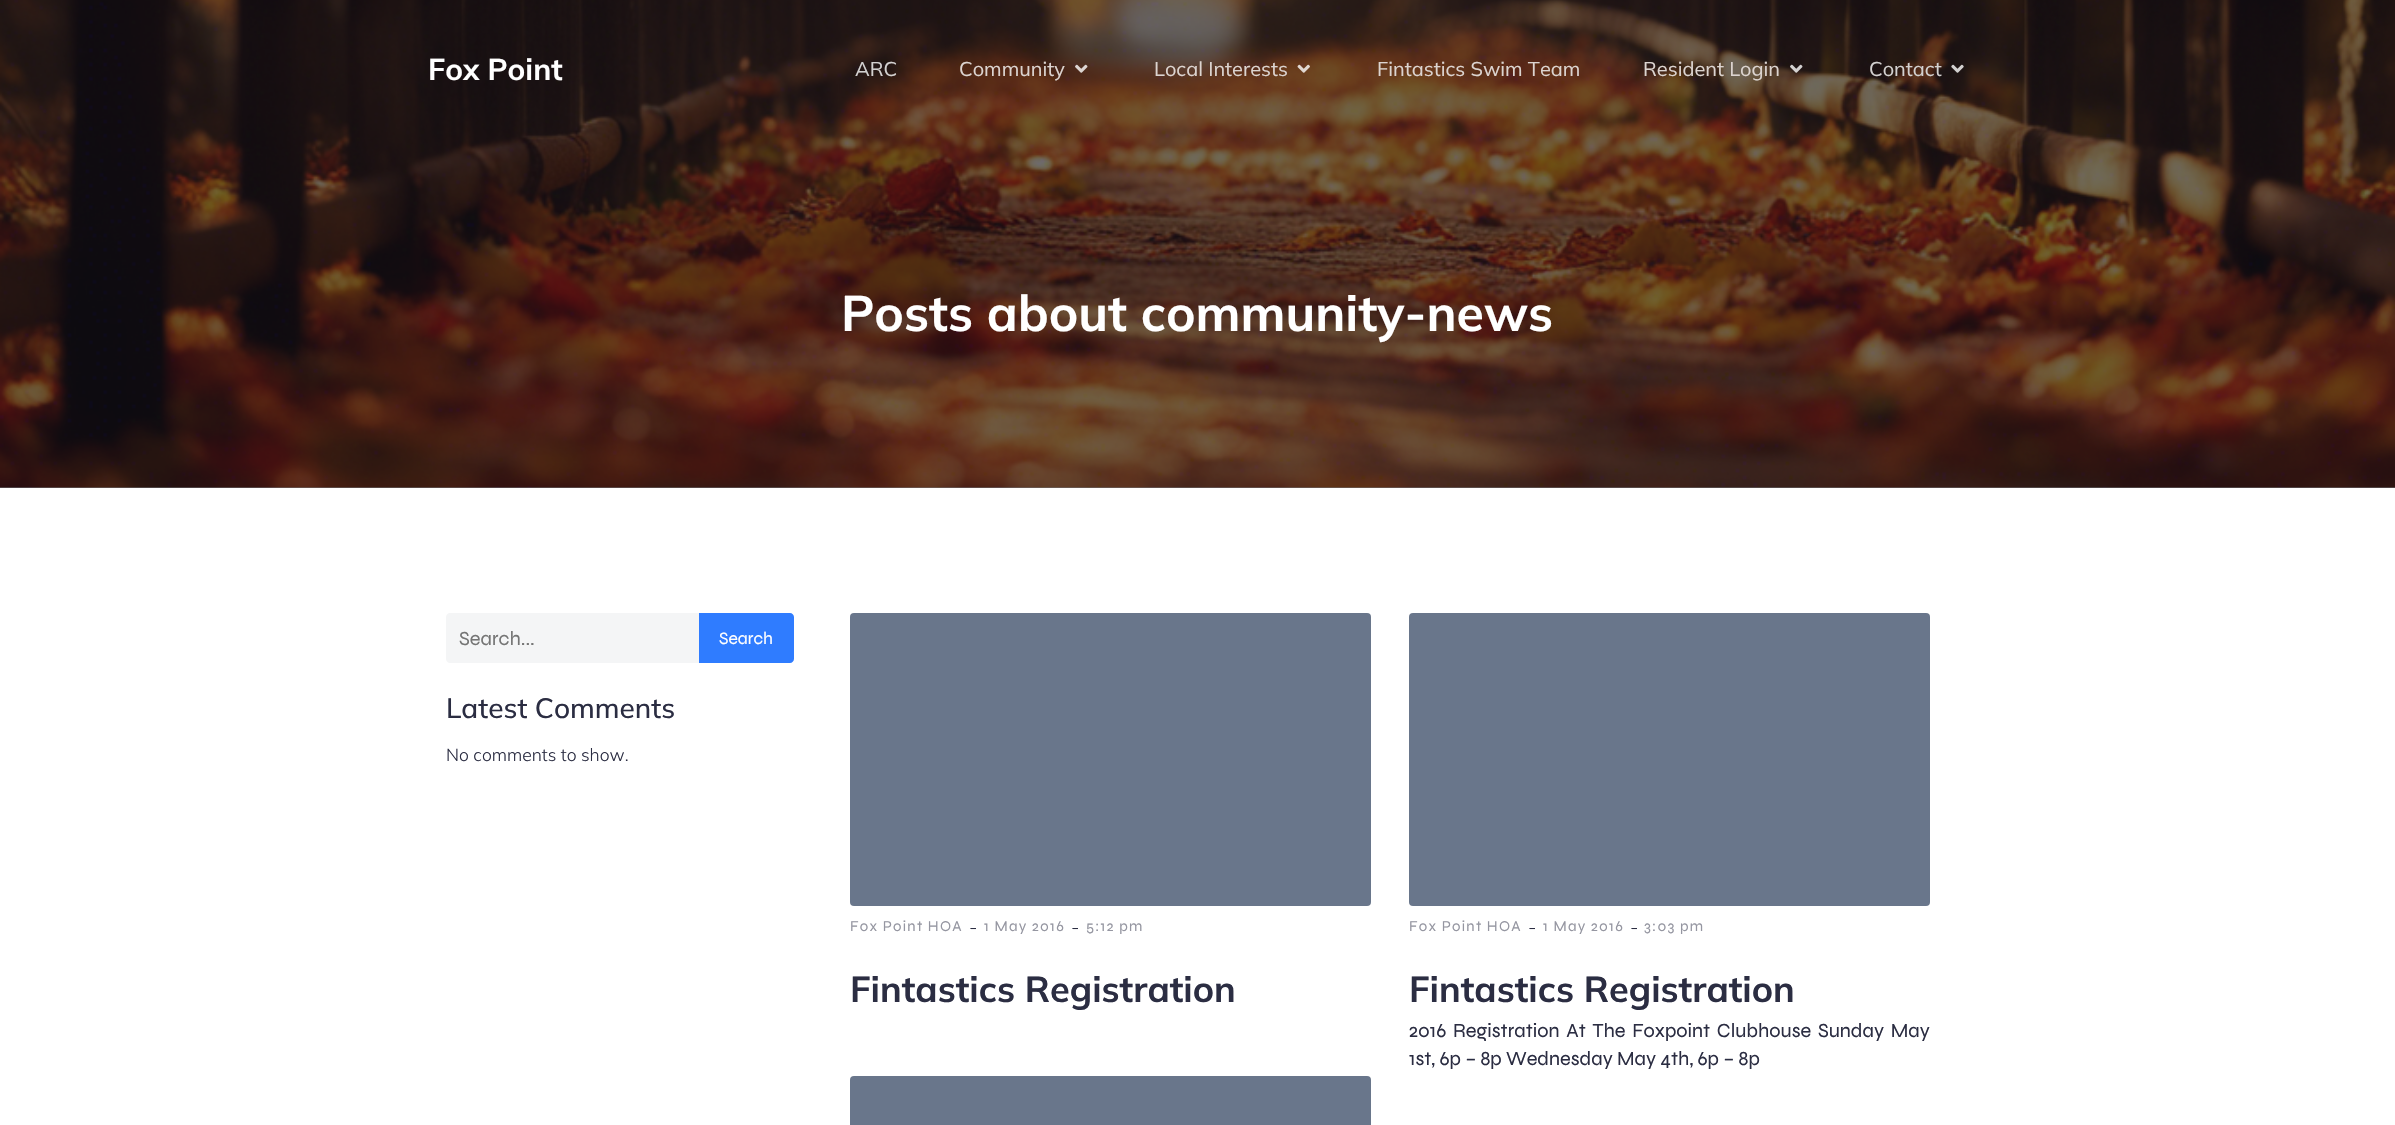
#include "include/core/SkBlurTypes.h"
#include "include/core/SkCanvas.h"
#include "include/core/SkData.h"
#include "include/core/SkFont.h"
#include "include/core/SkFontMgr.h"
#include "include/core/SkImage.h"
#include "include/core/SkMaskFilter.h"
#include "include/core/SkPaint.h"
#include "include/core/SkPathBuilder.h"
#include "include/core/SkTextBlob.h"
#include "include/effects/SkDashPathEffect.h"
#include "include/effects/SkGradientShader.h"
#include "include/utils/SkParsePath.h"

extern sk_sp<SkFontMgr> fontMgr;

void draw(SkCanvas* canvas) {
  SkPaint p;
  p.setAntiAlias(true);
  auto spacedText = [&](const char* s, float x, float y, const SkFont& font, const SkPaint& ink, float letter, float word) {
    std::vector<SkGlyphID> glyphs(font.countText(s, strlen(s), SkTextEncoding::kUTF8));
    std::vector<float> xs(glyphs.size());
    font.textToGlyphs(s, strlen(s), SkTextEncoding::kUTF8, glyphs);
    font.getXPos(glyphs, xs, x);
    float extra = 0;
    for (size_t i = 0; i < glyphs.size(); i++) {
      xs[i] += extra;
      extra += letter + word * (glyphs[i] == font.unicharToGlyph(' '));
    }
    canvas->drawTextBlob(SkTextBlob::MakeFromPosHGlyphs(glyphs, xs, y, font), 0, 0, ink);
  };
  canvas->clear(SK_ColorWHITE);
  p.setColor(SkColorSetRGB(112, 113, 118));
  canvas->drawRect(SkRect::MakeLTRB(0, 487, 2395, 488), p);
  canvas->drawImageRect(SkImages::DeferredFromEncodedData(SkData::MakeFromFileName("images/5.png")), SkRect::MakeLTRB(0, 0, 2395, 488), SkSamplingOptions());
  canvas->drawImageRect(SkImages::DeferredFromEncodedData(SkData::MakeFromFileName("images/1.png")), SkRect::MakeLTRB(1075, 64, 1088, 73), SkSamplingOptions());
  canvas->drawImageRect(SkImages::DeferredFromEncodedData(SkData::MakeFromFileName("images/2.png")), SkRect::MakeLTRB(1297, 64, 1310, 73), SkSamplingOptions());
  canvas->drawImageRect(SkImages::DeferredFromEncodedData(SkData::MakeFromFileName("images/3.png")), SkRect::MakeLTRB(1790, 64, 1803, 73), SkSamplingOptions());
  canvas->drawImageRect(SkImages::DeferredFromEncodedData(SkData::MakeFromFileName("images/4.png")), SkRect::MakeLTRB(1951, 64, 1964, 73), SkSamplingOptions());
  p.setColor(SkColorSetRGB(244, 245, 246));
  canvas->drawPath(SkPathBuilder().moveTo(450, 613).lineTo(699, 613).lineTo(699, 663).lineTo(450, 663).cubicTo(448, 663, 446, 661, 446, 659).lineTo(446, 617).cubicTo(446, 615, 448, 613, 450, 613).close().detach(), p);
  p.setColor(SkColorSetRGB(47, 124, 255));
  canvas->drawPath(SkPathBuilder().moveTo(699, 613).lineTo(790, 613).cubicTo(792, 613, 794, 615, 794, 617).lineTo(794, 659).cubicTo(794, 661, 792, 663, 790, 663).lineTo(699, 663).close().detach(), p);
  p.setColor(SkColorSetRGB(105, 118, 139));
  canvas->drawRoundRect(SkRect::MakeLTRB(850, 613, 1371, 906), 4, 4, p);
  canvas->drawRoundRect(SkRect::MakeLTRB(1409, 613, 1930, 906), 4, 4, p);
  canvas->drawRoundRect(SkRect::MakeLTRB(850, 1076, 1371, 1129), 4, 4, p);
  SkFont font1(fontMgr->matchFamilyStyle("Mulish", SkFontStyle::Bold()), 30);
  font1.setSubpixel(true);
  p.setColor(SK_ColorWHITE);
  canvas->drawString("Fox Point", 428, 80, font1, p);
  SkFont font2(fontMgr->matchFamilyStyle("Mulish", SkFontStyle::Normal()), 20);
  font2.setSubpixel(true);
  p.setColor(SkColorSetRGB(211, 209, 208));
  canvas->drawString("ARC", 855, 76, font2, p);
  p.setColor(SkColorSetRGB(220, 212, 208));
  canvas->drawString("Community", 959, 76, font2, p);
  canvas->drawString("Local Interests", 1154, 76, font2, p);
  canvas->drawString("Fintastics Swim Team", 1377, 76, font2, p);
  canvas->drawString("Resident Login", 1643, 76, font2, p);
  p.setColor(SkColorSetRGB(211, 209, 208));
  canvas->drawString("Contact", 1869, 76, font2, p);
  SkFont font3(fontMgr->matchFamilyStyle("Mulish", SkFontStyle::Bold()), 50);
  font3.setSubpixel(true);
  p.setColor(SK_ColorWHITE);
  canvas->drawString("Posts about community-news", 841, 331, font3, p);
  SkFont font4(fontMgr->matchFamilyStyle("Syne", SkFontStyle::Normal()), 20);
  font4.setSubpixel(true);
  p.setColor(SkColorSetRGB(117, 117, 117));
  canvas->drawString("Search...", 459, 645, font4, p);
  SkFont font5(fontMgr->matchFamilyStyle("Syne", SkFontStyle::Normal()), 17.5f);
  font5.setSubpixel(true);
  p.setColor(SK_ColorWHITE);
  canvas->drawString("Search", 719, 644, font5, p);
  SkFont font6(fontMgr->matchFamilyStyle("Mulish", SkFontStyle(500, SkFontStyle::kNormal_Width, SkFontStyle::kUpright_Slant)), 28);
  font6.setSubpixel(true);
  p.setColor(SkColorSetRGB(43, 45, 66));
  canvas->drawString("Latest Comments", 446, 718, font6, p);
  SkFont font7(fontMgr->matchFamilyStyle("Mulish", SkFontStyle(300, SkFontStyle::kNormal_Width, SkFontStyle::kUpright_Slant)), 17.5f);
  font7.setSubpixel(true);
  canvas->drawString("No comments to show.", 446, 761, font7, p);
  SkFont font8(fontMgr->matchFamilyStyle("Syne", SkFontStyle::Normal()), 15);
  font8.setSubpixel(true);
  p.setColor(SkColorSetRGB(149, 150, 161));
  spacedText("Fox Point HOA", 850, 931, font8, p, 1.25f, 0);
  SkFont font9(fontMgr->matchFamilyStyle("Mulish", SkFontStyle(300, SkFontStyle::kNormal_Width, SkFontStyle::kUpright_Slant)), 20);
  font9.setSubpixel(true);
  p.setColor(SkColorSetRGB(43, 45, 66));
  canvas->drawString("-", 969, 934, font9, p);
  p.setColor(SkColorSetRGB(149, 150, 161));
  spacedText("1 May 2016", 984, 931, font8, p, 1.25f, 0);
  p.setColor(SkColorSetRGB(43, 45, 66));
  canvas->drawString("-", 1071, 934, font9, p);
  p.setColor(SkColorSetRGB(149, 150, 161));
  spacedText("5:12 pm", 1086, 931, font8, p, 1.25f, 0);
  SkFont font10(fontMgr->matchFamilyStyle("Mulish", SkFontStyle::Bold()), 36);
  font10.setSubpixel(true);
  p.setColor(SkColorSetRGB(43, 45, 66));
  canvas->drawString("Fintastics Registration", 850, 1002, font10, p);
  p.setColor(SkColorSetRGB(149, 150, 161));
  spacedText("Fox Point HOA", 1409, 931, font8, p, 1.25f, 0);
  p.setColor(SkColorSetRGB(43, 45, 66));
  canvas->drawString("-", 1528, 934, font9, p);
  p.setColor(SkColorSetRGB(149, 150, 161));
  spacedText("1 May 2016", 1543, 931, font8, p, 1.25f, 0);
  p.setColor(SkColorSetRGB(43, 45, 66));
  canvas->drawString("-", 1630, 934, font9, p);
  p.setColor(SkColorSetRGB(149, 150, 161));
  spacedText("3:03 pm", 1644, 931, font8, p, 1.25f, 0);
  p.setColor(SkColorSetRGB(43, 45, 66));
  canvas->drawString("Fintastics Registration", 1409, 1002, font10, p);
  spacedText("2016 Registration At The Foxpoint Clubhouse Sunday May", 1409, 1037, font4, p, 0, 2.5f);
  canvas->drawString("1st, 6p – 8p Wednesday May 4th, 6p – 8p", 1409, 1065, font4, p);
}
